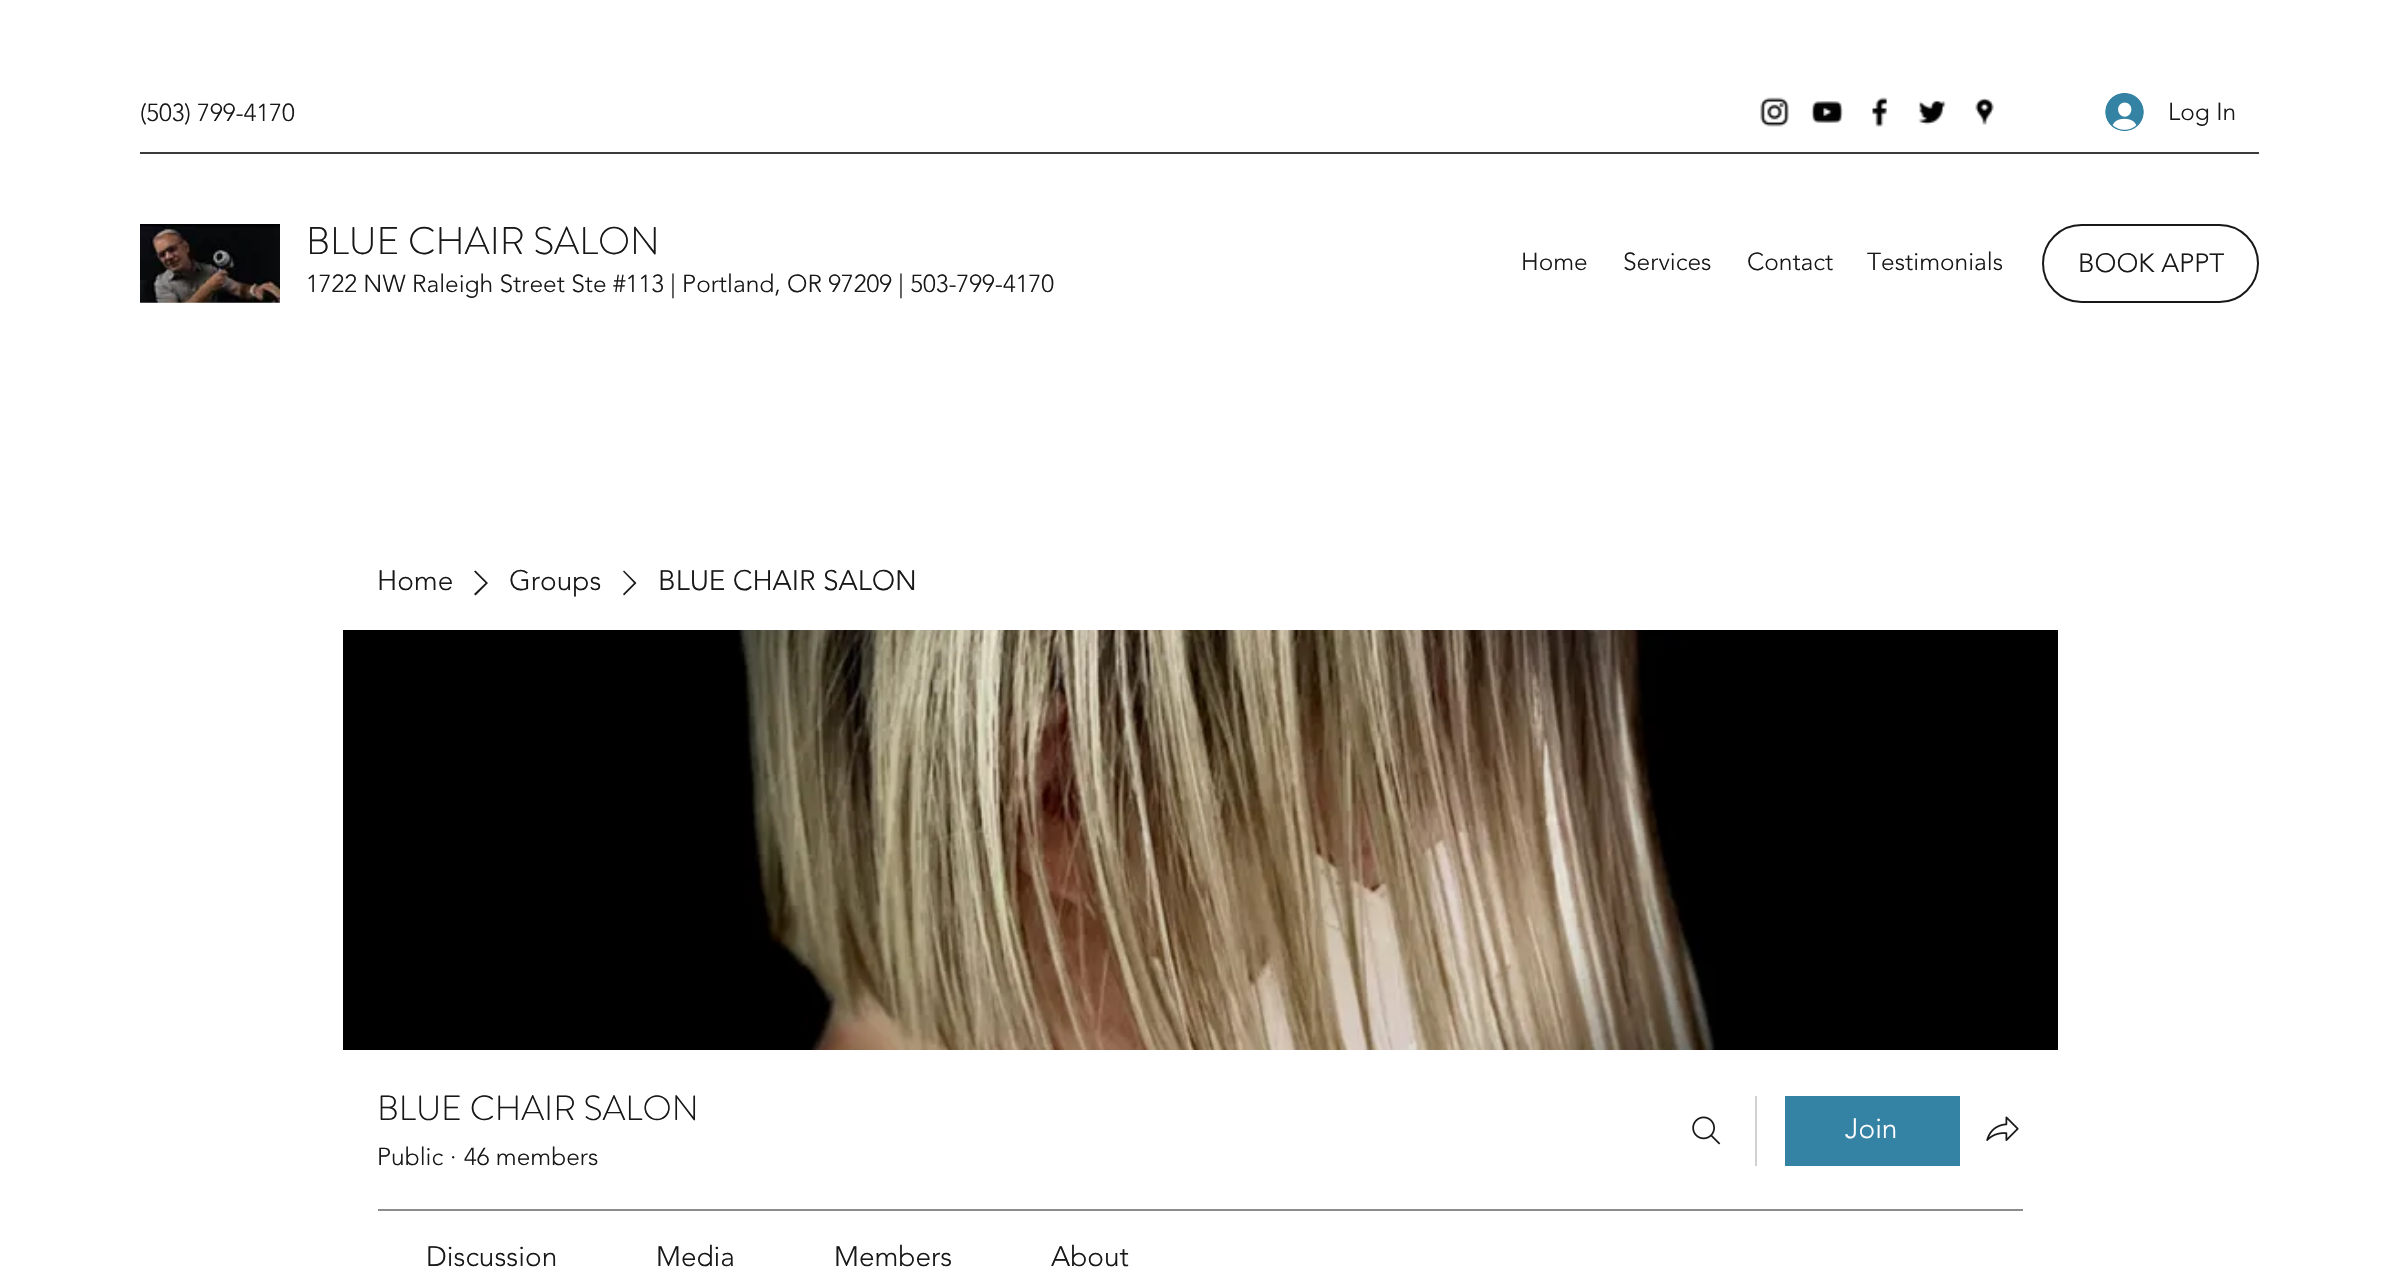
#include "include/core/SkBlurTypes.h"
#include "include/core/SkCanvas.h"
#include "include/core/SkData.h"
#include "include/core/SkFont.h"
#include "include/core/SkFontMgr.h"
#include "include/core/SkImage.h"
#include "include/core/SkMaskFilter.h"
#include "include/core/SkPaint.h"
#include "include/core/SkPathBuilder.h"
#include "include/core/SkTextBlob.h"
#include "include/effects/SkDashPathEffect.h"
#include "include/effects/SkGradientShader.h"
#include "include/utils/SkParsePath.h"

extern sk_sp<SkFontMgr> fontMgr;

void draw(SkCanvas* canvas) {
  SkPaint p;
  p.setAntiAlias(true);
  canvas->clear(SK_ColorWHITE);
  canvas->drawImageRect(SkImages::DeferredFromEncodedData(SkData::MakeFromFileName("images/1.png")), SkRect::MakeLTRB(1760, 97, 1789, 127), SkSamplingOptions());
  canvas->drawImageRect(SkImages::DeferredFromEncodedData(SkData::MakeFromFileName("images/2.png")), SkRect::MakeLTRB(1811, 101, 1843, 123), SkSamplingOptions());
  canvas->drawImageRect(SkImages::DeferredFromEncodedData(SkData::MakeFromFileName("images/3.png")), SkRect::MakeLTRB(1872, 97, 1888, 127), SkSamplingOptions());
  canvas->drawImageRect(SkImages::DeferredFromEncodedData(SkData::MakeFromFileName("images/4.png")), SkRect::MakeLTRB(1918, 100, 1947, 125), SkSamplingOptions());
  canvas->drawImageRect(SkImages::DeferredFromEncodedData(SkData::MakeFromFileName("images/5.png")), SkRect::MakeLTRB(1975, 98, 1994, 125), SkSamplingOptions());
  canvas->drawImageRect(SkImages::DeferredFromEncodedData(SkData::MakeFromFileName("images/6.png")), SkRect::MakeLTRB(2105, 93, 2144, 131), SkSamplingOptions());
  p.setColor(SkColorSetRGB(59, 59, 59));
  canvas->drawRect(SkRect::MakeLTRB(140, 152, 2259, 154), p);
  canvas->drawImageRect(SkImages::DeferredFromEncodedData(SkData::MakeFromFileName("images/7.png")), SkRect::MakeLTRB(140, 224, 280, 303), SkSamplingOptions());
  p.setStyle(SkPaint::kStroke_Style);
  p.setStrokeWidth(2);
  p.setColor(SkColorSetRGB(24, 24, 24));
  canvas->drawRoundRect(SkRect::MakeLTRB(2043, 225, 2258, 302), 38.5f, 38.5f, p);
  p.setStyle(SkPaint::kFill_Style);
  canvas->drawPath(SkPathBuilder(SkPathFillType::kEvenOdd).moveTo(475.5f, 570.5f).lineTo(488, 583).lineTo(475.5f, 595.5f).lineTo(474, 594).lineTo(485.5f, 583).lineTo(474, 571.5f).close().detach(), p);
  canvas->drawPath(SkPathBuilder(SkPathFillType::kEvenOdd).moveTo(624, 570.5f).lineTo(636.5f, 583).lineTo(624, 595.5f).lineTo(623, 594).lineTo(634, 583).lineTo(623, 571.5f).close().detach(), p);
  canvas->drawImageRect(SkImages::DeferredFromEncodedData(SkData::MakeFromFileName("images/8.png")), SkRect::MakeLTRB(343, 630, 2058, 1050), SkSamplingOptions());
  canvas->drawImageRect(SkImages::DeferredFromEncodedData(SkData::MakeFromFileName("images/9.png")), SkRect::MakeLTRB(1692, 1116, 1721, 1145), SkSamplingOptions());
  p.setColor(SkColorSetRGB(209, 209, 209));
  canvas->drawRect(SkRect::MakeLTRB(1755, 1096, 1757, 1166), p);
  p.setColor(SkColorSetRGB(52, 130, 164));
  canvas->drawRect(SkRect::MakeLTRB(1785, 1096, 1960, 1166), p);
  canvas->drawImageRect(SkImages::DeferredFromEncodedData(SkData::MakeFromFileName("images/10.png")), SkRect::MakeLTRB(1986, 1116, 2019, 1141), SkSamplingOptions());
  p.setColor(SkColorSetRGB(140, 140, 140));
  canvas->drawRect(SkRect::MakeLTRB(378, 1209, 2023, 1211), p);
  SkFont font1(fontMgr->matchFamilyStyle("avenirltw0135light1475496", SkFontStyle(300, SkFontStyle::kNormal_Width, SkFontStyle::kUpright_Slant)), 24.5f);
  font1.setSubpixel(true);
  p.setColor(SkColorSetRGB(24, 24, 24));
  canvas->drawString("(503) 799-4170", 140, 121, font1, p);
  canvas->drawString("Log In", 2168, 120, font1, p);
  SkFont font2(fontMgr->matchFamilyStyle("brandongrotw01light", SkFontStyle(300, SkFontStyle::kNormal_Width, SkFontStyle::kUpright_Slant)), 38.5f);
  font2.setSubpixel(true);
  canvas->drawString("BLUE CHAIR SALON", 306, 254, font2, p);
  canvas->drawString("1722 NW Raleigh Street Ste #113 | Portland, OR 97209 | 503-799-4170", 306, 292, font1, p);
  canvas->drawString("Home", 1521, 270, font1, p);
  canvas->drawString("Services", 1623, 270, font1, p);
  canvas->drawString("Contact", 1747, 270, font1, p);
  canvas->drawString("Testimonials", 1867, 270, font1, p);
  SkFont font3(fontMgr->matchFamilyStyle("avenirltw0135light1475496", SkFontStyle(300, SkFontStyle::kNormal_Width, SkFontStyle::kUpright_Slant)), 26.25f);
  font3.setSubpixel(true);
  canvas->drawString("BOOK APPT", 2078, 272, font3, p);
  SkFont font4(fontMgr->matchFamilyStyle("avenirltw0135light1475496", SkFontStyle(300, SkFontStyle::kNormal_Width, SkFontStyle::kUpright_Slant)), 28);
  font4.setSubpixel(true);
  canvas->drawString("Home", 377, 590, font4, p);
  canvas->drawString("Groups", 509, 590, font4, p);
  canvas->drawString("BLUE CHAIR SALON", 658, 590, font4, p);
  SkFont font5(fontMgr->matchFamilyStyle("brandongrotw01light", SkFontStyle(300, SkFontStyle::kNormal_Width, SkFontStyle::kUpright_Slant)), 35);
  font5.setSubpixel(true);
  canvas->drawString("BLUE CHAIR SALON", 377, 1120, font5, p);
  canvas->drawString("Public", 377, 1165, font1, p);
  canvas->drawString("·", 450, 1165, font1, p);
  canvas->drawString("46 members", 464, 1165, font1, p);
  p.setColor(SK_ColorWHITE);
  canvas->drawString("Join", 1845, 1138, font4, p);
  p.setColor(SkColorSetRGB(24, 24, 24));
  canvas->drawString("Discussion", 426, 1266, font4, p);
  canvas->drawString("Media", 656, 1266, font4, p);
  canvas->drawString("Members", 834, 1266, font4, p);
  canvas->drawString("About", 1051, 1266, font4, p);
}
